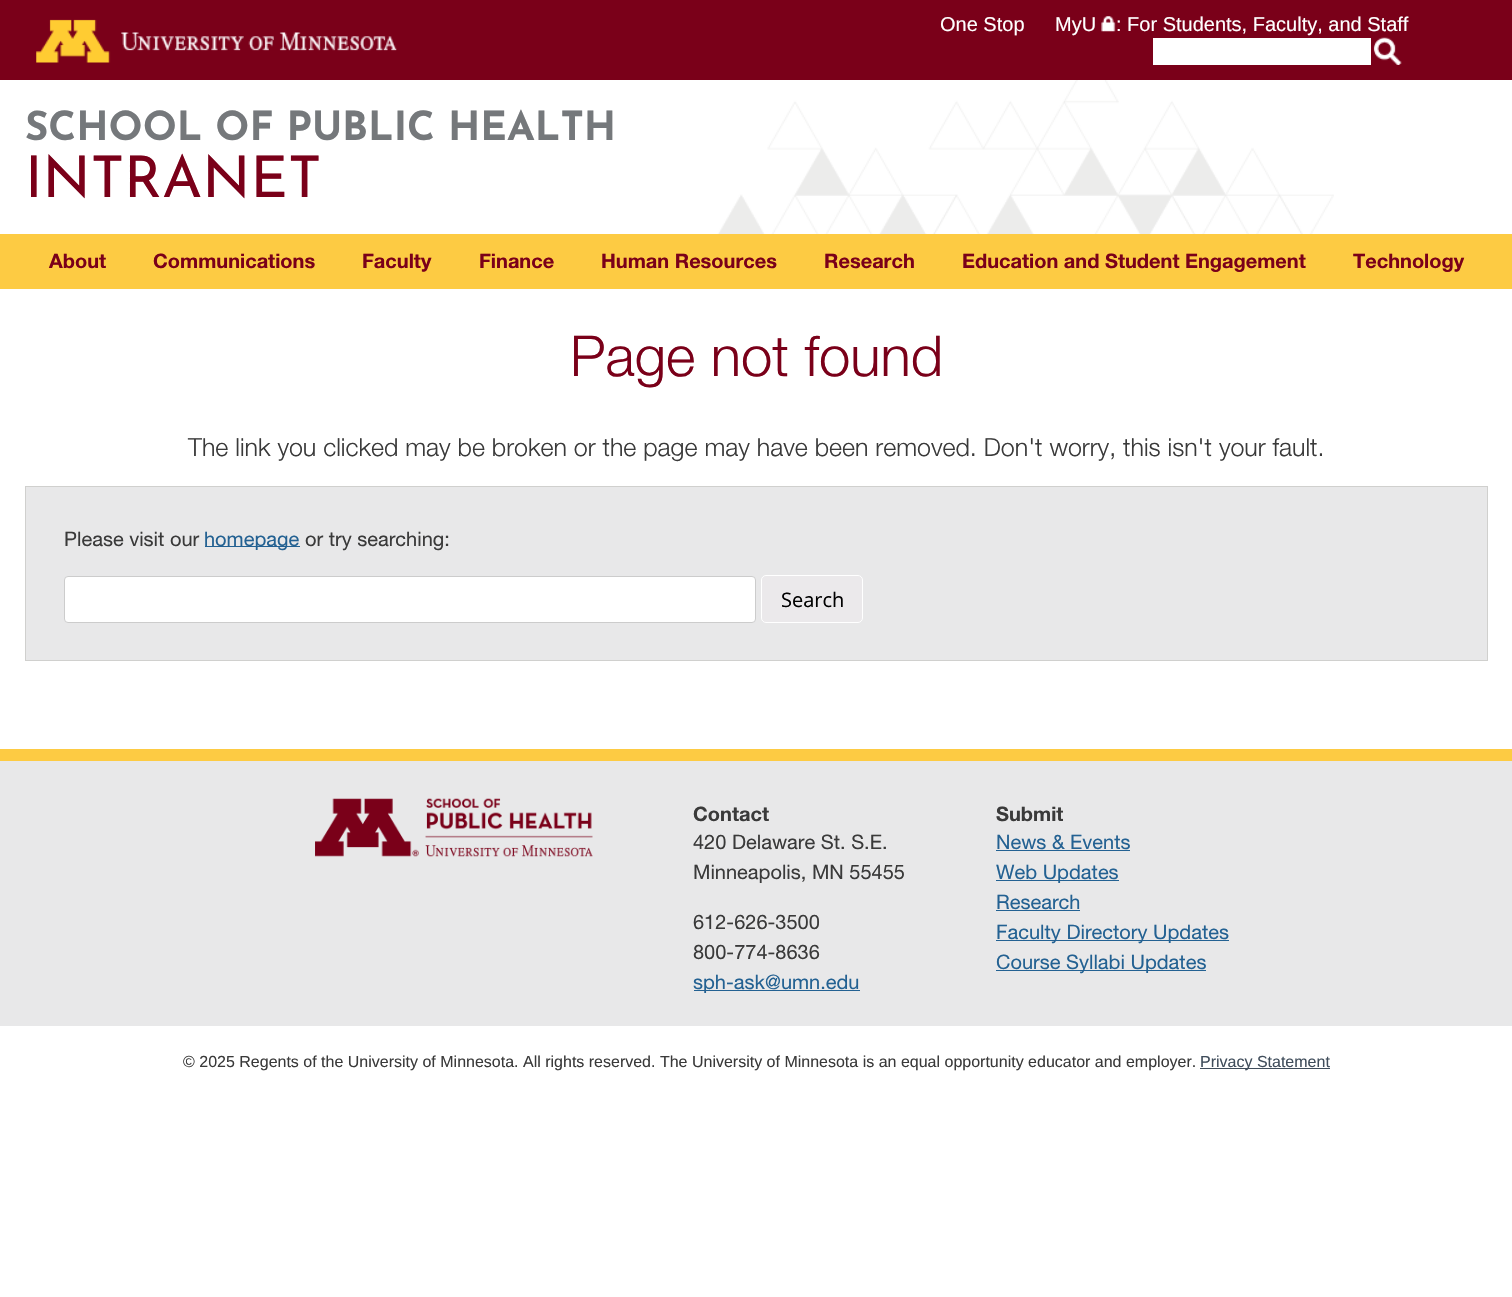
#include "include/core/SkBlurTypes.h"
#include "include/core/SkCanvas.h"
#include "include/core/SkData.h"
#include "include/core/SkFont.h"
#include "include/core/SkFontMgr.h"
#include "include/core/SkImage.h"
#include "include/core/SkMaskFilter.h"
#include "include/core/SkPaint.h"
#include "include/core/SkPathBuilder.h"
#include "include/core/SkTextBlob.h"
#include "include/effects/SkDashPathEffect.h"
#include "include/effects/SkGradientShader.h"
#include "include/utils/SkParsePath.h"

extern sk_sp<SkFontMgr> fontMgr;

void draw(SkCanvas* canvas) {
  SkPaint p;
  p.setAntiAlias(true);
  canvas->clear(SK_ColorWHITE);
  p.setColor(SkColorSetRGB(122, 0, 25));
  canvas->drawRect(SkRect::MakeLTRB(0, 0, 1512, 80), p);
  canvas->drawImageRect(SkImages::DeferredFromEncodedData(SkData::MakeFromFileName("images/1.png")), SkRect::MakeLTRB(36, 19, 397, 63), SkSamplingOptions());
  canvas->drawImageRect(SkImages::DeferredFromEncodedData(SkData::MakeFromFileName("images/2.png")), SkRect::MakeLTRB(1101, 16, 1116, 32), SkSamplingOptions());
  p.setColor(SK_ColorWHITE);
  canvas->drawRect(SkRect::MakeLTRB(1153, 38, 1371, 65), p);
  canvas->drawImageRect(SkImages::DeferredFromEncodedData(SkData::MakeFromFileName("images/3.png")), SkRect::MakeLTRB(1373, 37, 1402, 65), SkSamplingOptions());
  canvas->drawImageRect(SkImages::DeferredFromEncodedData(SkData::MakeFromFileName("images/4.png")), SkRect::MakeLTRB(714, 80, 1334, 234), SkSamplingOptions());
  p.setColor(SkColorSetRGB(253, 203, 67));
  canvas->drawRect(SkRect::MakeLTRB(0, 234, 1512, 289), p);
  p.setColor(SkColorSetRGB(232, 232, 233));
  canvas->drawRect(SkRect::MakeLTRB(25.5f, 486.5f, 1487.5f, 660.5f), p);
  p.setStyle(SkPaint::kStroke_Style);
  p.setStrokeWidth(1);
  p.setColor(SkColorSetRGB(208, 208, 206));
  canvas->drawRect(SkRect::MakeLTRB(25.5f, 486.5f, 1487.5f, 660.5f), p);
  p.setStyle(SkPaint::kFill_Style);
  p.setColor(SkColorSetRGB(35, 97, 146));
  canvas->drawRect(SkRect::MakeLTRB(205, 546, 300, 547), p);
  p.setColor(SK_ColorWHITE);
  canvas->drawRoundRect(SkRect::MakeLTRB(64.5f, 576.5f, 755.5f, 622.5f), 3.5f, 3.5f, p);
  p.setStyle(SkPaint::kStroke_Style);
  p.setColor(SkColorSetRGB(204, 204, 204));
  canvas->drawRoundRect(SkRect::MakeLTRB(64.5f, 576.5f, 755.5f, 622.5f), 3.5f, 3.5f, p);
  p.setStyle(SkPaint::kFill_Style);
  p.setColor(SkColorSetRGB(235, 233, 235));
  canvas->drawRoundRect(SkRect::MakeLTRB(761.5f, 575.5f, 862.5f, 622.5f), 4.5f, 4.5f, p);
  p.setStyle(SkPaint::kStroke_Style);
  p.setColor(SK_ColorWHITE);
  canvas->drawRoundRect(SkRect::MakeLTRB(761.5f, 575.5f, 862.5f, 622.5f), 4.5f, 4.5f, p);
  p.setStyle(SkPaint::kFill_Style);
  p.setColor(SkColorSetRGB(232, 232, 233));
  canvas->drawRect(SkRect::MakeLTRB(0, 761, 1512, 1026), p);
  p.setColor(SkColorSetRGB(253, 203, 67));
  canvas->drawRect(SkRect::MakeLTRB(0, 749, 1512, 761), p);
  canvas->drawImageRect(SkImages::DeferredFromEncodedData(SkData::MakeFromFileName("images/5.png")), SkRect::MakeLTRB(315, 798, 593, 857), SkSamplingOptions());
  p.setColor(SkColorSetRGB(35, 97, 146));
  canvas->drawRect(SkRect::MakeLTRB(694, 990, 860, 991), p);
  canvas->drawRect(SkRect::MakeLTRB(996, 850, 1130, 851), p);
  canvas->drawRect(SkRect::MakeLTRB(996, 880, 1119, 881), p);
  canvas->drawRect(SkRect::MakeLTRB(996, 910, 1080, 911), p);
  canvas->drawRect(SkRect::MakeLTRB(996, 940, 1229, 941), p);
  canvas->drawRect(SkRect::MakeLTRB(996, 970, 1206, 971), p);
  p.setColor(SkColorSetRGB(64, 77, 91));
  canvas->drawRect(SkRect::MakeLTRB(1200, 1068, 1330, 1069), p);
  SkFont font1(fontMgr->matchFamilyStyle("Liberation Sans", SkFontStyle::Normal()), 20);
  font1.setSubpixel(true);
  p.setColor(SK_ColorWHITE);
  canvas->drawString("One Stop", 940, 31, font1, p);
  canvas->drawString("MyU", 1055, 31, font1, p);
  canvas->drawString(": For Students, Faculty, and Staff", 1116, 31, font1, p);
  SkFont font2(fontMgr->matchFamilyStyle("Josefin Sans", SkFontStyle::Bold()), 40);
  font2.setSubpixel(true);
  p.setColor(SkColorSetRGB(117, 120, 123));
  canvas->drawString("SCHOOL OF PUBLIC HEALTH", 25, 140, font2, p);
  SkFont font3(fontMgr->matchFamilyStyle("Josefin Sans", SkFontStyle::Normal()), 57.5f);
  font3.setSubpixel(true);
  p.setColor(SkColorSetRGB(122, 0, 25));
  canvas->drawString("INTRANET", 25, 197, font3, p);
  SkFont font4(fontMgr->matchFamilyStyle("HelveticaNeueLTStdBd", SkFontStyle::Normal()), 20);
  font4.setSubpixel(true);
  canvas->drawString("About", 49, 268, font4, p);
  canvas->drawString("Communications", 153, 268, font4, p);
  canvas->drawString("Faculty", 362, 268, font4, p);
  canvas->drawString("Finance", 479, 268, font4, p);
  canvas->drawString("Human Resources", 601, 268, font4, p);
  canvas->drawString("Research", 824, 268, font4, p);
  canvas->drawString("Education and Student Engagement", 962, 268, font4, p);
  canvas->drawString("Technology", 1353, 268, font4, p);
  SkFont font5(fontMgr->matchFamilyStyle("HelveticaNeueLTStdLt", SkFontStyle::Normal()), 56.25f);
  font5.setSubpixel(true);
  canvas->drawString("Page not found", 570, 376, font5, p);
  SkFont font6(fontMgr->matchFamilyStyle("HelveticaNeueLTStdLt", SkFontStyle::Normal()), 25);
  font6.setSubpixel(true);
  p.setColor(SkColorSetRGB(58, 58, 58));
  canvas->drawString("The link you clicked may be broken or the page may have been removed. Don't worry, this isn't your fault.", 188, 456, font6, p);
  SkFont font7(fontMgr->matchFamilyStyle("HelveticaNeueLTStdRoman", SkFontStyle::Normal()), 20);
  font7.setSubpixel(true);
  canvas->drawString("Please visit our", 64, 546, font7, p);
  p.setColor(SkColorSetRGB(35, 97, 146));
  canvas->drawString("homepage", 204, 546, font7, p);
  p.setColor(SkColorSetRGB(58, 58, 58));
  canvas->drawString("or try searching:", 305, 546, font7, p);
  SkFont font8(fontMgr->matchFamilyStyle("Open Sans", SkFontStyle::Normal()), 20);
  font8.setSubpixel(true);
  p.setColor(SK_ColorBLACK);
  canvas->drawString("Search", 781, 607, font8, p);
  p.setColor(SkColorSetRGB(58, 58, 58));
  canvas->drawString("Contact", 693, 821, font4, p);
  canvas->drawString("420 Delaware St. S.E.", 693, 849, font7, p);
  canvas->drawString("Minneapolis, MN 55455", 693, 879, font7, p);
  canvas->drawString("612-626-3500", 693, 929, font7, p);
  canvas->drawString("800-774-8636", 693, 959, font7, p);
  p.setColor(SkColorSetRGB(35, 97, 146));
  canvas->drawString("sph-ask@umn.edu", 693, 989, font7, p);
  p.setColor(SkColorSetRGB(58, 58, 58));
  canvas->drawString("Submit", 996, 821, font4, p);
  p.setColor(SkColorSetRGB(35, 97, 146));
  canvas->drawString("News & Events", 996, 849, font7, p);
  canvas->drawString("Web Updates", 996, 879, font7, p);
  canvas->drawString("Research", 996, 909, font7, p);
  canvas->drawString("Faculty Directory Updates", 996, 939, font7, p);
  canvas->drawString("Course Syllabi Updates", 996, 969, font7, p);
  SkFont font9(fontMgr->matchFamilyStyle("Liberation Sans", SkFontStyle::Normal()), 16);
  font9.setSubpixel(true);
  p.setColor(SkColorSetRGB(58, 58, 58));
  canvas->drawString("© 2025 Regents of the University of Minnesota. All rights reserved. The University of Minnesota is an equal opportunity educator and employer.", 183, 1067, font9, p);
  p.setColor(SkColorSetRGB(64, 77, 91));
  canvas->drawString("Privacy Statement", 1200, 1067, font9, p);
}
